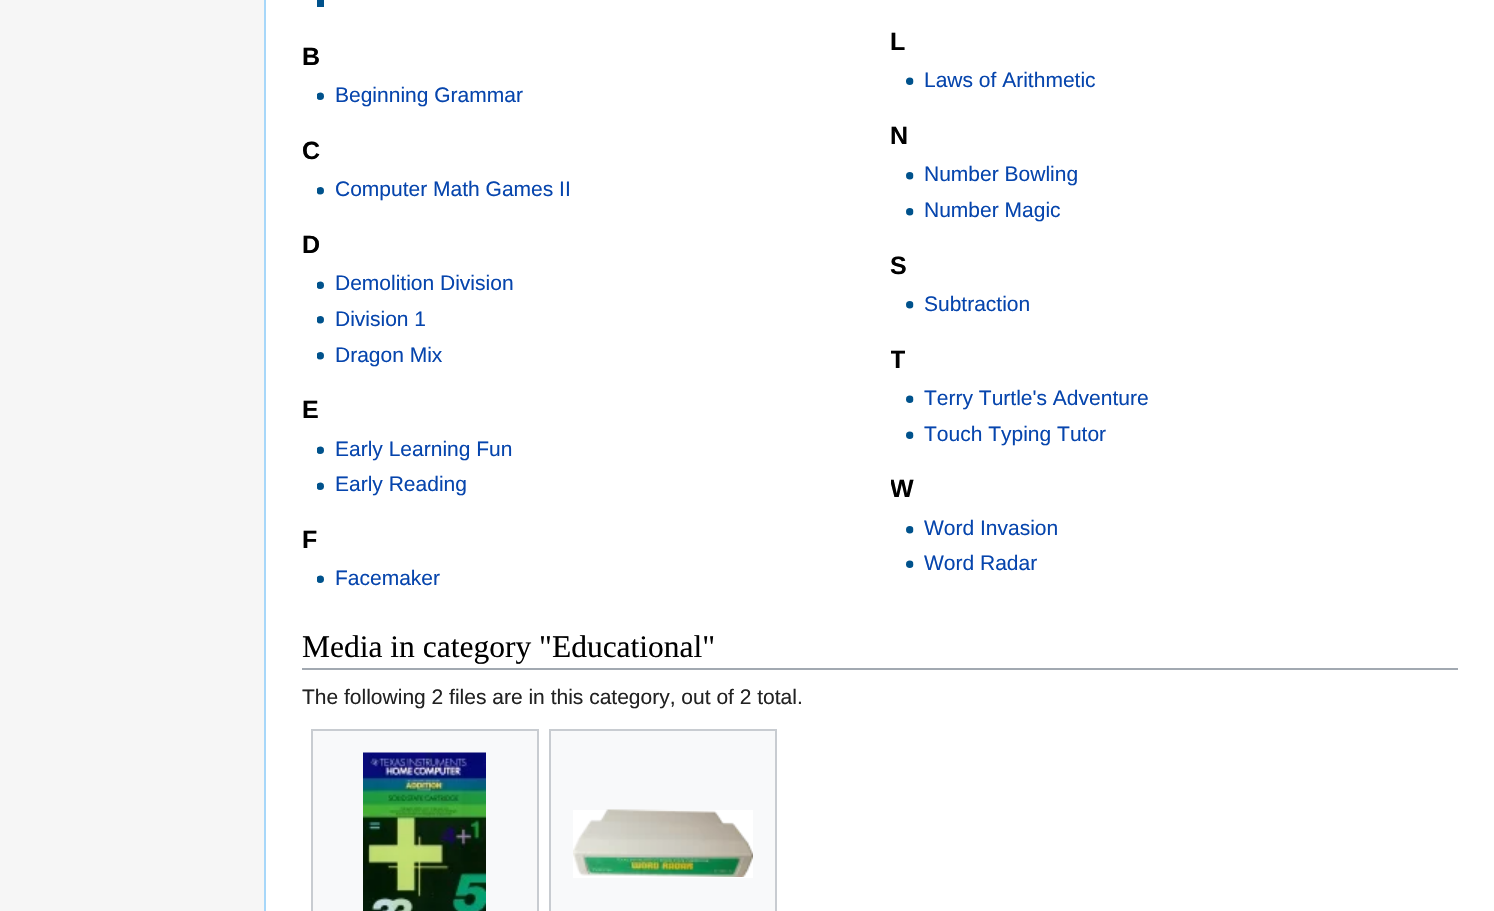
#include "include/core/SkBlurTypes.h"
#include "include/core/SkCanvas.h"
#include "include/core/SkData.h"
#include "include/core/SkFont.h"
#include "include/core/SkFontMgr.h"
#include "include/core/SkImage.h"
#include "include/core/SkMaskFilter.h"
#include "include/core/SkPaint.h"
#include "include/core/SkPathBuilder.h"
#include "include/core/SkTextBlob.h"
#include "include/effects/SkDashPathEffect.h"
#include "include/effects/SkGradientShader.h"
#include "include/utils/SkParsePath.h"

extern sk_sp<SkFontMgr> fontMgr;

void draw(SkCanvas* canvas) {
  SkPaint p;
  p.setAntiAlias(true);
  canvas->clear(SkColorSetRGB(246, 246, 246));
  p.setColor(SK_ColorWHITE);
  canvas->drawRect(SkRect::MakeLTRB(266, 0, 1494, 911), p);
  p.setColor(SkColorSetRGB(167, 215, 249));
  canvas->drawRect(SkRect::MakeLTRB(264, 0, 266, 911), p);
  p.setColor(SkColorSetRGB(0, 82, 140));
  canvas->drawRect(SkRect::MakeLTRB(317, 0, 324, 7), p);
  canvas->drawImageRect(SkImages::DeferredFromEncodedData(SkData::MakeFromFileName("images/1.png")), SkRect::MakeLTRB(317, 92, 324, 100), SkSamplingOptions());
  canvas->drawImageRect(SkImages::DeferredFromEncodedData(SkData::MakeFromFileName("images/2.png")), SkRect::MakeLTRB(906, 77, 914, 85), SkSamplingOptions());
  canvas->drawImageRect(SkImages::DeferredFromEncodedData(SkData::MakeFromFileName("images/3.png")), SkRect::MakeLTRB(317, 187, 324, 195), SkSamplingOptions());
  canvas->drawImageRect(SkImages::DeferredFromEncodedData(SkData::MakeFromFileName("images/4.png")), SkRect::MakeLTRB(906, 172, 914, 180), SkSamplingOptions());
  canvas->drawImageRect(SkImages::DeferredFromEncodedData(SkData::MakeFromFileName("images/4.png")), SkRect::MakeLTRB(906, 208, 914, 216), SkSamplingOptions());
  canvas->drawImageRect(SkImages::DeferredFromEncodedData(SkData::MakeFromFileName("images/1.png")), SkRect::MakeLTRB(317, 281, 324, 289), SkSamplingOptions());
  canvas->drawImageRect(SkImages::DeferredFromEncodedData(SkData::MakeFromFileName("images/3.png")), SkRect::MakeLTRB(317, 316, 324, 324), SkSamplingOptions());
  canvas->drawImageRect(SkImages::DeferredFromEncodedData(SkData::MakeFromFileName("images/3.png")), SkRect::MakeLTRB(317, 352, 324, 360), SkSamplingOptions());
  canvas->drawImageRect(SkImages::DeferredFromEncodedData(SkData::MakeFromFileName("images/4.png")), SkRect::MakeLTRB(906, 301, 914, 309), SkSamplingOptions());
  canvas->drawImageRect(SkImages::DeferredFromEncodedData(SkData::MakeFromFileName("images/1.png")), SkRect::MakeLTRB(317, 446, 324, 454), SkSamplingOptions());
  canvas->drawImageRect(SkImages::DeferredFromEncodedData(SkData::MakeFromFileName("images/1.png")), SkRect::MakeLTRB(317, 482, 324, 490), SkSamplingOptions());
  canvas->drawImageRect(SkImages::DeferredFromEncodedData(SkData::MakeFromFileName("images/5.png")), SkRect::MakeLTRB(906, 395, 914, 403), SkSamplingOptions());
  canvas->drawImageRect(SkImages::DeferredFromEncodedData(SkData::MakeFromFileName("images/5.png")), SkRect::MakeLTRB(906, 431, 914, 439), SkSamplingOptions());
  canvas->drawImageRect(SkImages::DeferredFromEncodedData(SkData::MakeFromFileName("images/1.png")), SkRect::MakeLTRB(317, 575, 324, 583), SkSamplingOptions());
  canvas->drawImageRect(SkImages::DeferredFromEncodedData(SkData::MakeFromFileName("images/4.png")), SkRect::MakeLTRB(906, 526, 914, 534), SkSamplingOptions());
  canvas->drawImageRect(SkImages::DeferredFromEncodedData(SkData::MakeFromFileName("images/5.png")), SkRect::MakeLTRB(906, 560, 914, 568), SkSamplingOptions());
  p.setColor(SkColorSetRGB(162, 169, 177));
  canvas->drawRect(SkRect::MakeLTRB(302, 668, 1458, 670), p);
  p.setColor(SkColorSetRGB(248, 249, 250));
  canvas->drawRect(SkRect::MakeLTRB(312, 730, 538, 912), p);
  p.setStyle(SkPaint::kStroke_Style);
  p.setStrokeWidth(2);
  p.setColor(SkColorSetRGB(200, 204, 209));
  canvas->drawRect(SkRect::MakeLTRB(312, 730, 538, 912), p);
  canvas->drawImageRect(SkImages::DeferredFromEncodedData(SkData::MakeFromFileName("images/6.png")), SkRect::MakeLTRB(363, 752, 486, 911), SkSamplingOptions());
  p.setStyle(SkPaint::kFill_Style);
  p.setColor(SkColorSetRGB(248, 249, 250));
  canvas->drawRect(SkRect::MakeLTRB(550, 730, 776, 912), p);
  p.setStyle(SkPaint::kStroke_Style);
  p.setColor(SkColorSetRGB(200, 204, 209));
  canvas->drawRect(SkRect::MakeLTRB(550, 730, 776, 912), p);
  p.setStyle(SkPaint::kFill_Style);
  p.setColor(SK_ColorWHITE);
  canvas->drawRect(SkRect::MakeLTRB(573, 810, 753, 878), p);
  canvas->drawImageRect(SkImages::DeferredFromEncodedData(SkData::MakeFromFileName("images/7.png")), SkRect::MakeLTRB(573, 809, 753, 877), SkSamplingOptions());
  SkFont font1(fontMgr->matchFamilyStyle("Liberation Sans", SkFontStyle::Bold()), 25);
  font1.setSubpixel(true);
  p.setColor(SK_ColorBLACK);
  canvas->drawString("B", 302, 65, font1, p);
  SkFont font2(fontMgr->matchFamilyStyle("Liberation Sans", SkFontStyle::Normal()), 21);
  font2.setSubpixel(true);
  p.setColor(SkColorSetRGB(6, 69, 173));
  canvas->drawString("Beginning Grammar", 335, 102, font2, p);
  p.setColor(SK_ColorBLACK);
  canvas->drawString("L", 890, 50, font1, p);
  p.setColor(SkColorSetRGB(6, 69, 173));
  canvas->drawString("Laws of Arithmetic", 924, 87, font2, p);
  p.setColor(SK_ColorBLACK);
  canvas->drawString("C", 302, 159, font1, p);
  p.setColor(SkColorSetRGB(6, 69, 173));
  canvas->drawString("Computer Math Games II", 335, 196, font2, p);
  p.setColor(SK_ColorBLACK);
  canvas->drawString("N", 890, 144, font1, p);
  p.setColor(SkColorSetRGB(6, 69, 173));
  canvas->drawString("Number Bowling", 924, 181, font2, p);
  canvas->drawString("Number Magic", 924, 217, font2, p);
  p.setColor(SK_ColorBLACK);
  canvas->drawString("D", 302, 253, font1, p);
  p.setColor(SkColorSetRGB(6, 69, 173));
  canvas->drawString("Demolition Division", 335, 290, font2, p);
  canvas->drawString("Division 1", 335, 326, font2, p);
  canvas->drawString("Dragon Mix", 335, 362, font2, p);
  p.setColor(SK_ColorBLACK);
  canvas->drawString("S", 890, 274, font1, p);
  p.setColor(SkColorSetRGB(6, 69, 173));
  canvas->drawString("Subtraction", 924, 311, font2, p);
  p.setColor(SK_ColorBLACK);
  canvas->drawString("E", 302, 418, font1, p);
  p.setColor(SkColorSetRGB(6, 69, 173));
  canvas->drawString("Early Learning Fun", 335, 456, font2, p);
  canvas->drawString("Early Reading", 335, 491, font2, p);
  canvas->save();
  canvas->clipRect(SkRect::MakeLTRB(891, 329, 1458, 381));
  p.setColor(SK_ColorBLACK);
  canvas->drawString("T", 890, 368, font1, p);
  canvas->restore();
  p.setColor(SkColorSetRGB(6, 69, 173));
  canvas->drawString("Terry Turtle's Adventure", 924, 405, font2, p);
  canvas->drawString("Touch Typing Tutor", 924, 441, font2, p);
  p.setColor(SK_ColorBLACK);
  canvas->drawString("F", 302, 548, font1, p);
  p.setColor(SkColorSetRGB(6, 69, 173));
  canvas->drawString("Facemaker", 335, 585, font2, p);
  canvas->save();
  canvas->clipRect(SkRect::MakeLTRB(891, 458, 1458, 512));
  p.setColor(SK_ColorBLACK);
  canvas->drawString("W", 890, 497, font1, p);
  canvas->restore();
  p.setColor(SkColorSetRGB(6, 69, 173));
  canvas->drawString("Word Invasion", 924, 535, font2, p);
  canvas->drawString("Word Radar", 924, 570, font2, p);
  SkFont font3(fontMgr->matchFamilyStyle("Liberation Serif", SkFontStyle::Normal()), 31.5f);
  font3.setSubpixel(true);
  p.setColor(SK_ColorBLACK);
  canvas->drawString("Media in category \"Educational\"", 302, 657, font3, p);
  p.setColor(SkColorSetRGB(34, 34, 34));
  canvas->drawString("The following 2 files are in this category, out of 2 total.", 302, 704, font2, p);
}
